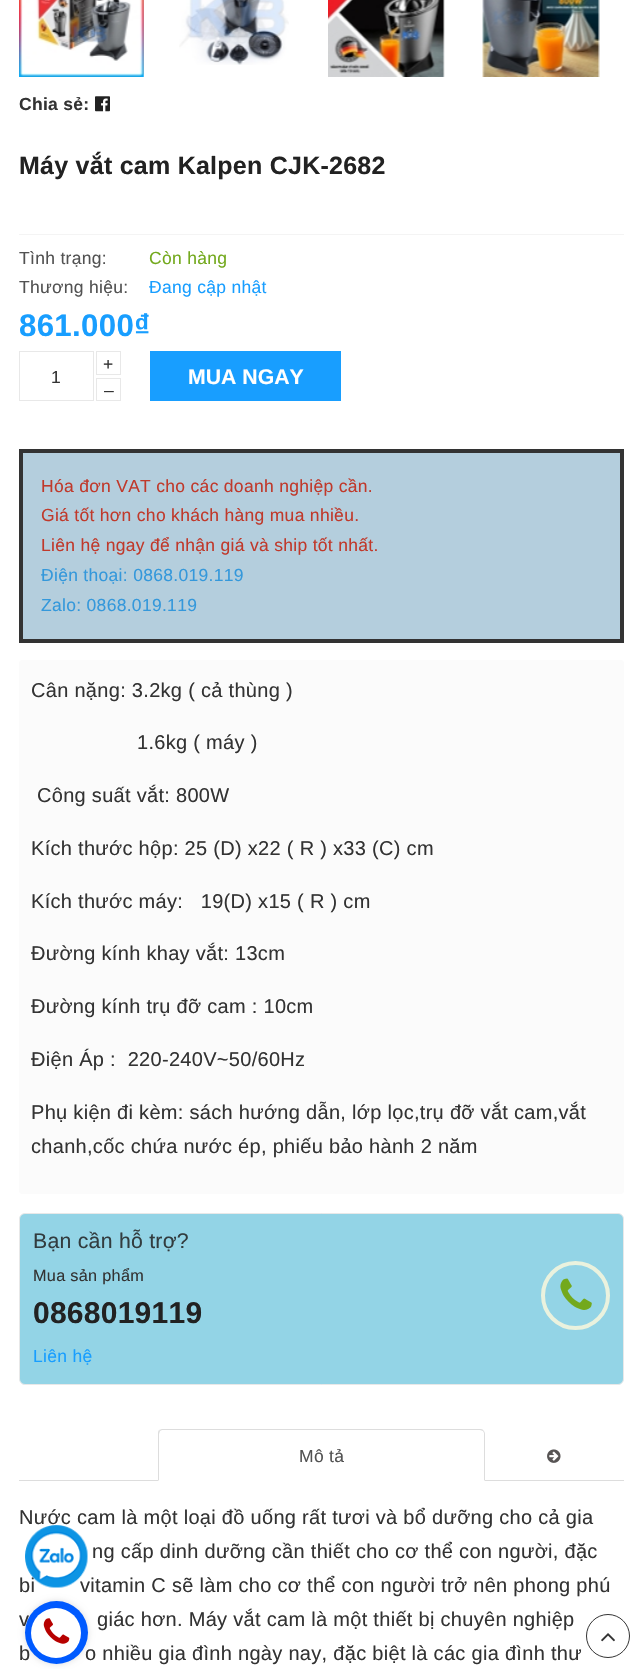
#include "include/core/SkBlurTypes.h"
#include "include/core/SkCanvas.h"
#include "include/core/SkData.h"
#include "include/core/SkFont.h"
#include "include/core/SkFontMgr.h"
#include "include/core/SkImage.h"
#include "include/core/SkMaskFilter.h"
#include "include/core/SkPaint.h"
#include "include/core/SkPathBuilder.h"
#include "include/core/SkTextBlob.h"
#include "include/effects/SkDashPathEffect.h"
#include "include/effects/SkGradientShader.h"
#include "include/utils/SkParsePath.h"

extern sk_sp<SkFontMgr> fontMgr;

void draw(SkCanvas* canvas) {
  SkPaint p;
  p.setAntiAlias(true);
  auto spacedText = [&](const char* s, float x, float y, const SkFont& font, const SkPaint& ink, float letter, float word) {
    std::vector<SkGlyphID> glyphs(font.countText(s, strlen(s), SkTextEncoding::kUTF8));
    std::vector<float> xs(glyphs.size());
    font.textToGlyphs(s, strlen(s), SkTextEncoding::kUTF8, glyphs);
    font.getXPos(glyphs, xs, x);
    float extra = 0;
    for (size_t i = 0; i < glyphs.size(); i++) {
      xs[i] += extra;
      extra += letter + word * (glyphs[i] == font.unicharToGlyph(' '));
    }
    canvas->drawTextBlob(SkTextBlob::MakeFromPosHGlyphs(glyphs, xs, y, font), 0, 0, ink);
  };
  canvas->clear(SK_ColorWHITE);
  canvas->drawImageRect(SkImages::DeferredFromEncodedData(SkData::MakeFromFileName("images/1.png")), SkRect::MakeLTRB(19, 0, 144, 77), SkSamplingOptions());
  canvas->drawImageRect(SkImages::DeferredFromEncodedData(SkData::MakeFromFileName("images/2.png")), SkRect::MakeLTRB(179, 0, 289, 65), SkSamplingOptions());
  canvas->drawImageRect(SkImages::DeferredFromEncodedData(SkData::MakeFromFileName("images/3.png")), SkRect::MakeLTRB(328, 0, 445, 77), SkSamplingOptions());
  canvas->drawImageRect(SkImages::DeferredFromEncodedData(SkData::MakeFromFileName("images/4.png")), SkRect::MakeLTRB(482, 0, 600, 77), SkSamplingOptions());
  canvas->drawImageRect(SkImages::DeferredFromEncodedData(SkData::MakeFromFileName("images/5.png")), SkRect::MakeLTRB(95, 96, 110, 112), SkSamplingOptions());
  p.setColor(SkColorSetRGB(244, 244, 244));
  canvas->drawRect(SkRect::MakeLTRB(19, 234, 624, 235), p);
  p.setStyle(SkPaint::kStroke_Style);
  p.setStrokeWidth(1);
  p.setColor(SkColorSetRGB(232, 232, 232));
  canvas->drawRect(SkRect::MakeLTRB(19.5f, 351.5f, 93.5f, 400.5f), p);
  canvas->drawRect(SkRect::MakeLTRB(96.5f, 351.5f, 120.5f, 374.5f), p);
  canvas->drawRect(SkRect::MakeLTRB(96.5f, 378.5f, 120.5f, 400.5f), p);
  p.setStyle(SkPaint::kFill_Style);
  p.setColor(SkColorSetRGB(24, 158, 255));
  canvas->drawRect(SkRect::MakeLTRB(150, 351, 341, 401), p);
  p.setColor(SkColorSetRGB(180, 206, 221));
  canvas->drawRect(SkRect::MakeLTRB(23, 453, 620, 639), p);
  p.setColor(SkColorSetRGB(51, 51, 51));
  canvas->drawRect(SkRect::MakeLTRB(19, 449, 624, 453), p);
  canvas->drawRect(SkRect::MakeLTRB(620, 449, 624, 643), p);
  canvas->drawRect(SkRect::MakeLTRB(19, 639, 624, 643), p);
  canvas->drawRect(SkRect::MakeLTRB(19, 449, 23, 643), p);
  p.setColor(SkColorSetRGB(251, 251, 251));
  canvas->drawRoundRect(SkRect::MakeLTRB(19, 660, 624, 1194), 4, 4, p);
  p.setColor(SkColorSetRGB(147, 212, 230));
  canvas->drawRoundRect(SkRect::MakeLTRB(19.5f, 1213.5f, 623.5f, 1384.5f), 5.5f, 5.5f, p);
  p.setStyle(SkPaint::kStroke_Style);
  p.setColor(SkColorSetRGB(232, 232, 232));
  canvas->drawRoundRect(SkRect::MakeLTRB(19.5f, 1213.5f, 623.5f, 1384.5f), 5.5f, 5.5f, p);
  p.setStrokeWidth(4);
  p.setColor(SkColorSetRGB(234, 242, 222));
  canvas->drawCircle(575.5f, 1295.5f, 32.5f, p);
  canvas->drawImageRect(SkImages::DeferredFromEncodedData(SkData::MakeFromFileName("images/6.png")), SkRect::MakeLTRB(560, 1278, 592, 1310), SkSamplingOptions());
  p.setStyle(SkPaint::kFill_Style);
  p.setColor(SkColorSetRGB(221, 221, 221));
  canvas->drawRect(SkRect::MakeLTRB(19, 1480, 624, 1481), p);
  p.setColor(SK_ColorWHITE);
  canvas->drawPath(SkPathBuilder().moveTo(163, 1429).lineTo(480, 1429).cubicTo(483, 1429, 485, 1431, 485, 1434).lineTo(485, 1481).lineTo(158, 1481).lineTo(158, 1434).cubicTo(158, 1431, 160, 1429, 163, 1429).close().detach(), p);
  p.setColor(SkColorSetRGB(221, 221, 221));
  canvas->drawPath(SkPathBuilder().moveTo(162, 1429).cubicTo(161, 1429, 160, 1430, 159, 1430).lineTo(160, 1431).lineTo(162, 1430).lineTo(480, 1430).lineTo(483, 1431).lineTo(483, 1430).cubicTo(483, 1429, 481, 1429, 480, 1429).close().detach(), p);
  canvas->drawPath(SkPathBuilder().moveTo(483, 1430).cubicTo(484, 1431, 485, 1432, 485, 1434).lineTo(485, 1481).lineTo(484, 1480).lineTo(484, 1433).lineTo(483, 1431).close().detach(), p);
  canvas->drawPath(SkPathBuilder().moveTo(159, 1430).cubicTo(158, 1431, 158, 1433, 158, 1434).lineTo(158, 1481).lineTo(159, 1480).lineTo(159, 1434).lineTo(160, 1431).close().detach(), p);
  canvas->drawImageRect(SkImages::DeferredFromEncodedData(SkData::MakeFromFileName("images/7.png")), SkRect::MakeLTRB(547, 1449, 561, 1463), SkSamplingOptions());
  p.setStyle(SkPaint::kStroke_Style);
  p.setStrokeWidth(1);
  p.setColor(SkColorSetRGB(51, 51, 51));
  canvas->drawCircle(608, 1636, 21.5f, p);
  canvas->drawImageRect(SkImages::DeferredFromEncodedData(SkData::MakeFromFileName("images/8.png")), SkRect::MakeLTRB(601, 1633, 615, 1642), SkSamplingOptions());
  p.setStyle(SkPaint::kFill_Style);
  p.setColor(SkColorSetRGB(221, 221, 221));
  p.setMaskFilter(SkMaskFilter::MakeBlur(kNormal_SkBlurStyle, 3));
  canvas->drawRoundRect(SkRect::MakeLTRB(25, 1601, 88, 1664), 31.5f, 31.5f, p);
  p.setMaskFilter(nullptr);
  SkFont font1(fontMgr->matchFamilyStyle("Liberation Sans", SkFontStyle::Bold()), 17.5f);
  font1.setSubpixel(true);
  p.setColor(SkColorSetRGB(51, 51, 51));
  spacedText("Chia sẻ:", 19, 110, font1, p, 0.3f, 0);
  SkFont font2(fontMgr->matchFamilyStyle("Liberation Sans", SkFontStyle::Bold()), 25);
  font2.setSubpixel(true);
  p.setColor(SkColorSetRGB(34, 34, 34));
  spacedText("Máy vắt cam Kalpen CJK-2682", 19, 174, font2, p, 0.25f, 0);
  SkFont font3(fontMgr->matchFamilyStyle("Liberation Sans", SkFontStyle::Normal()), 17.5f);
  font3.setSubpixel(true);
  p.setColor(SkColorSetRGB(82, 82, 82));
  spacedText("Tình trạng:", 19, 264, font3, p, 0.3f, 0);
  p.setColor(SkColorSetRGB(115, 169, 29));
  spacedText("Còn hàng", 149, 264, font3, p, 0.3f, 0);
  p.setColor(SkColorSetRGB(82, 82, 82));
  spacedText("Thương hiệu:", 19, 293, font3, p, 0.3f, 0);
  p.setColor(SkColorSetRGB(24, 158, 255));
  spacedText("Đang cập nhật", 149, 293, font3, p, 0.3f, 0);
  SkFont font4(fontMgr->matchFamilyStyle("Liberation Sans", SkFontStyle::Bold()), 31.25f);
  font4.setSubpixel(true);
  spacedText("861.000₫", 19, 336, font4, p, 0.3f, 0);
  p.setColor(SkColorSetRGB(51, 51, 51));
  spacedText("1", 51, 383, font3, p, 0.3f, 0);
  spacedText("+", 103, 370, font3, p, 0.3f, 0);
  spacedText("–", 104, 396, font3, p, 0.3f, 0);
  SkFont font5(fontMgr->matchFamilyStyle("Liberation Sans", SkFontStyle::Bold()), 21.25f);
  font5.setSubpixel(true);
  p.setColor(SK_ColorWHITE);
  canvas->drawString("MUA NGAY", 188, 384, font5, p);
  p.setColor(SkColorSetRGB(192, 57, 43));
  spacedText("Hóa đơn VAT cho các doanh nghiệp cần.", 41, 492, font3, p, 0.3f, 0);
  spacedText("Giá tốt hơn cho khách hàng mua nhiều.", 41, 521, font3, p, 0.3f, 0);
  spacedText("Liên hệ ngay để nhận giá và ship tốt nhất.", 41, 551, font3, p, 0.3f, 0);
  p.setColor(SkColorSetRGB(52, 152, 219));
  spacedText("Điện thoại: 0868.019.119", 41, 581, font3, p, 0.3f, 0);
  spacedText("Zalo: 0868.019.119", 41, 611, font3, p, 0.3f, 0);
  SkFont font6(fontMgr->matchFamilyStyle("Liberation Sans", SkFontStyle::Normal()), 20);
  font6.setSubpixel(true);
  p.setColor(SkColorSetRGB(51, 51, 51));
  spacedText("Cân nặng: 3.2kg ( cả thùng )", 31, 697, font6, p, 0.3f, 0);
  spacedText("1.6kg ( máy )", 137, 749, font6, p, 0.3f, 0);
  spacedText("Công suất vắt: 800W", 37, 802, font6, p, 0.3f, 0);
  spacedText("Kích thước hộp: 25 (D) x22 ( R ) x33 (C) cm", 31, 855, font6, p, 0.3f, 0);
  spacedText("Kích thước máy:   19(D) x15 ( R ) cm", 31, 908, font6, p, 0.3f, 0);
  spacedText("Đường kính khay vắt: 13cm", 31, 960, font6, p, 0.3f, 0);
  spacedText("Đường kính trụ đỡ cam : 10cm", 31, 1013, font6, p, 0.3f, 0);
  spacedText("Điện Áp :  220-240V~50/60Hz", 31, 1066, font6, p, 0.3f, 0);
  spacedText("Phụ kiện đi kèm: sách hướng dẫn, lớp lọc,trụ đỡ vắt cam,vắt", 31, 1119, font6, p, 0.3f, 0);
  spacedText("chanh,cốc chứa nước ép, phiếu bảo hành 2 năm", 31, 1153, font6, p, 0.3f, 0);
  SkFont font7(fontMgr->matchFamilyStyle("Liberation Sans", SkFontStyle::Normal()), 21.25f);
  font7.setSubpixel(true);
  p.setColor(SkColorSetRGB(50, 60, 63));
  spacedText("Bạn cần hỗ trợ?", 33, 1248, font7, p, 0.25f, 0);
  SkFont font8(fontMgr->matchFamilyStyle("Liberation Sans", SkFontStyle::Normal()), 16.25f);
  font8.setSubpixel(true);
  p.setColor(SkColorSetRGB(51, 51, 51));
  spacedText("Mua sản phẩm", 33, 1281, font8, p, 0.3f, 0);
  SkFont font9(fontMgr->matchFamilyStyle("Liberation Sans", SkFontStyle::Bold()), 30);
  font9.setSubpixel(true);
  p.setColor(SkColorSetRGB(34, 34, 34));
  spacedText("0868019119", 33, 1323, font9, p, 0.25f, 0);
  p.setColor(SkColorSetRGB(24, 158, 255));
  spacedText("Liên hệ", 33, 1362, font3, p, 0.3f, 0);
  p.setColor(SkColorSetRGB(82, 82, 82));
  spacedText("Mô tả", 299, 1462, font3, p, 0.3f, 0);
  p.setColor(SkColorSetRGB(51, 51, 51));
  spacedText("Nước cam là một loại đồ uống rất tươi và bổ dưỡng cho cả gia", 19, 1524, font6, p, 0.3f, 0);
  spacedText("ng cấp dinh dưỡng cần thiết cho cơ thể con người, đặc", 92, 1558, font6, p, 0.3f, 0);
  spacedText("bi", 19, 1592, font6, p, 0.3f, 0);
  spacedText("vitamin C sẽ làm cho cơ thể con người trở nên phong phú", 80, 1592, font6, p, 0.3f, 0);
  spacedText("v", 19, 1626, font6, p, 0.3f, 0);
  spacedText("giác hơn. Máy vắt cam là một thiết bị chuyên nghiệp", 97, 1626, font6, p, 0.3f, 0);
  spacedText("b", 19, 1660, font6, p, 0.3f, 0);
  spacedText("o nhiều gia đình ngày nay, đặc biệt là các gia đình thư", 85, 1660, font6, p, 0.3f, 0);
  canvas->drawImageRect(SkImages::DeferredFromEncodedData(SkData::MakeFromFileName("images/9.png")), SkRect::MakeLTRB(25, 1525, 88, 1588), SkSamplingOptions());
  p.setColor(SkColorSetRGB(0, 90, 255));
  canvas->drawCircle(56.5f, 1632.5f, 31.5f, p);
  p.setColor(SK_ColorWHITE);
  canvas->drawCircle(56, 1633, 25, p);
  canvas->drawImageRect(SkImages::DeferredFromEncodedData(SkData::MakeFromFileName("images/10.png")), SkRect::MakeLTRB(43, 1618, 70, 1644), SkSamplingOptions());
}
